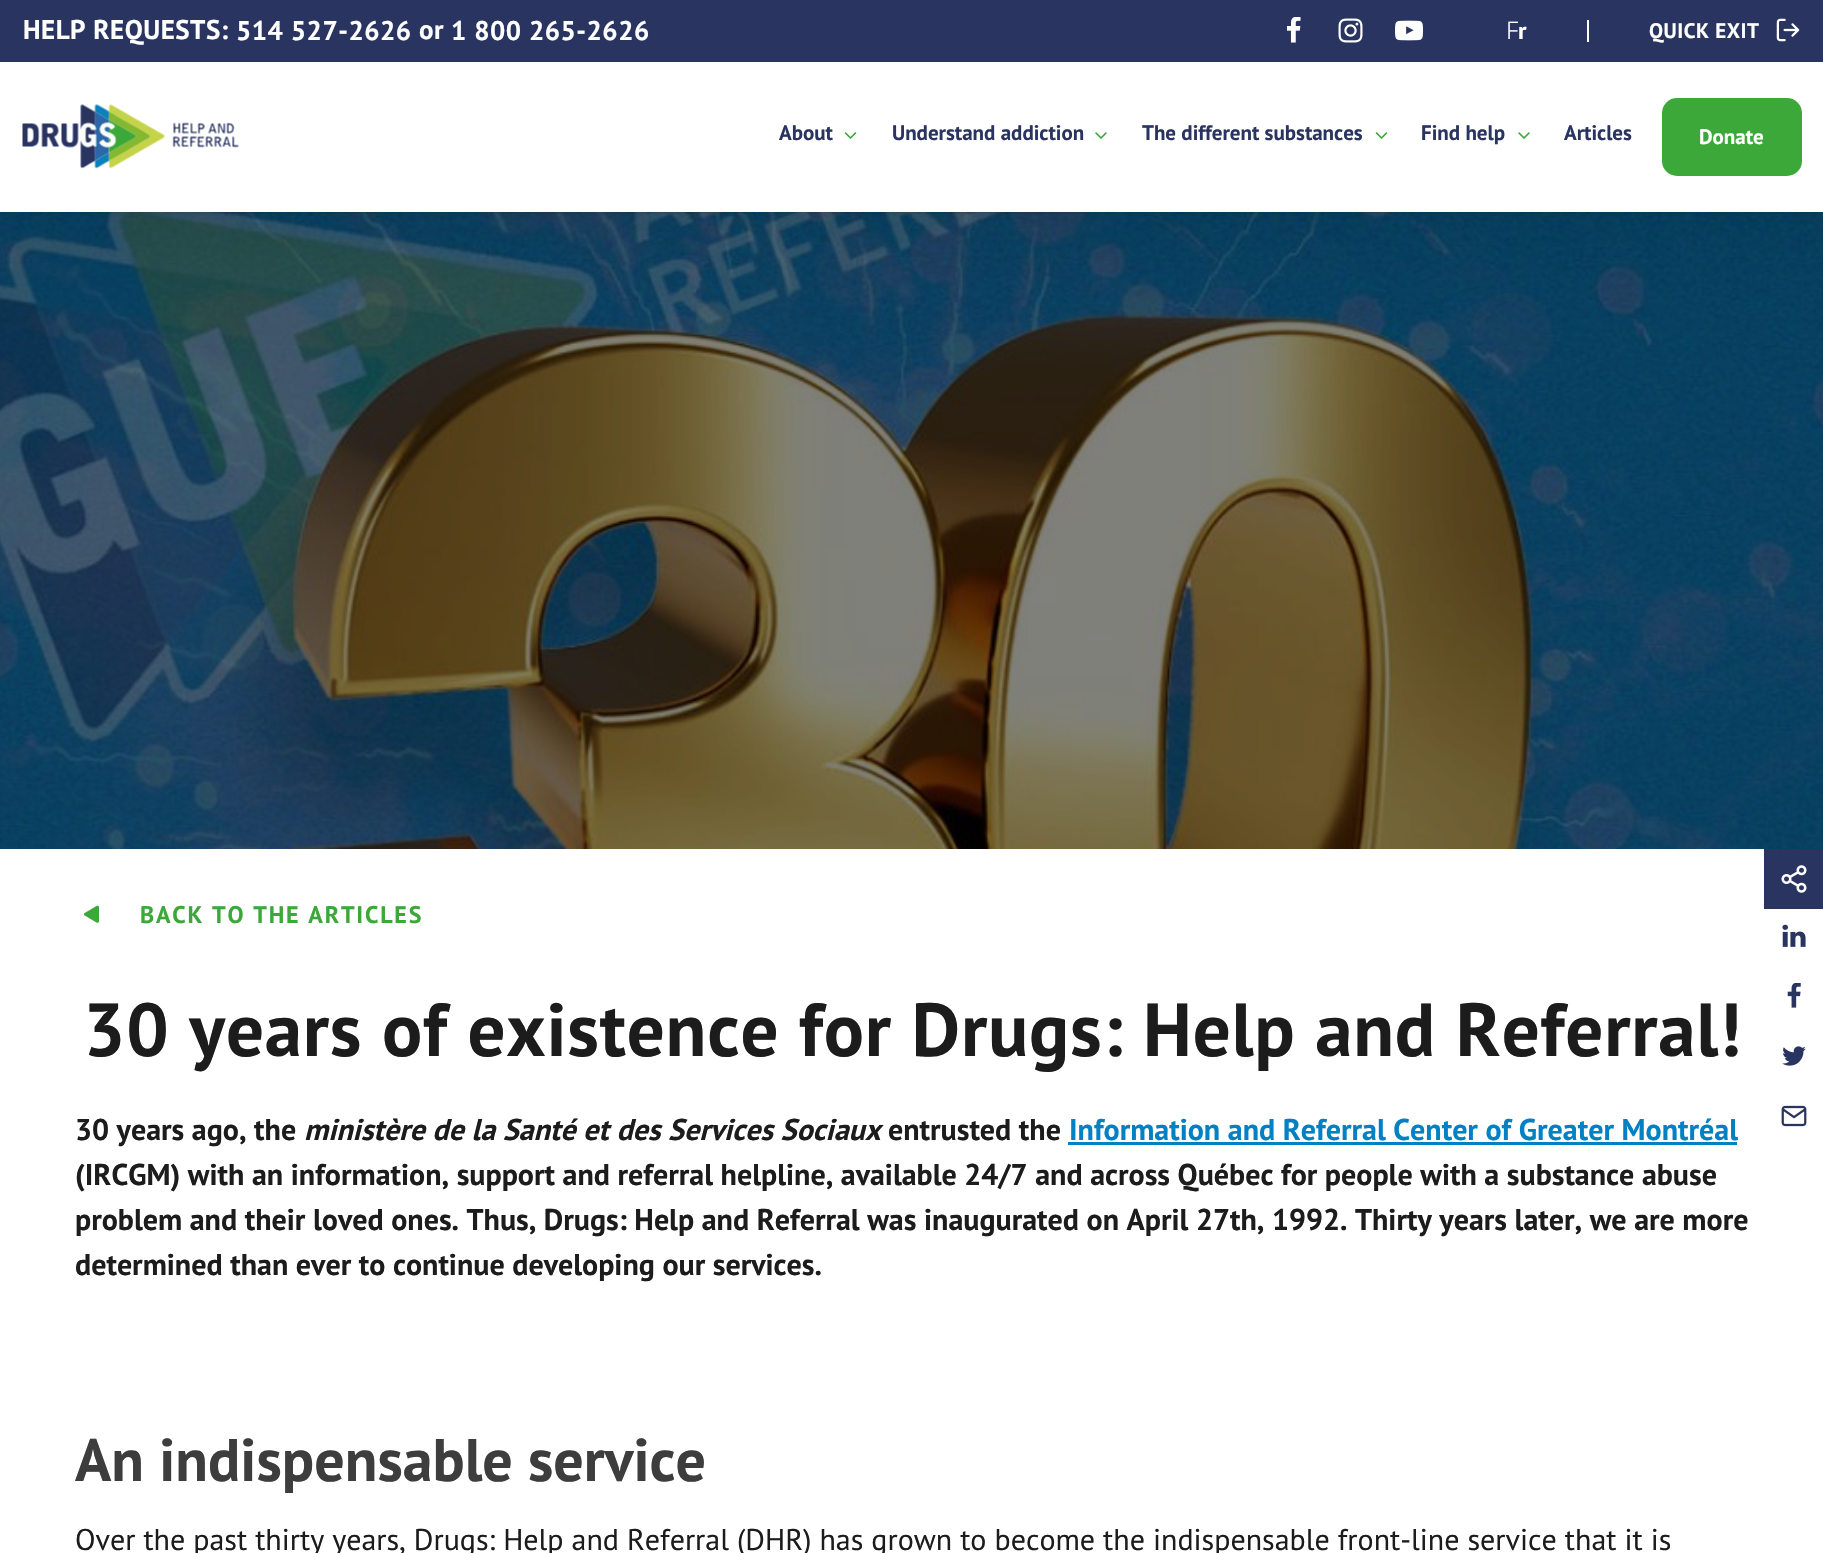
#include "include/core/SkBlurTypes.h"
#include "include/core/SkCanvas.h"
#include "include/core/SkData.h"
#include "include/core/SkFont.h"
#include "include/core/SkFontMgr.h"
#include "include/core/SkImage.h"
#include "include/core/SkMaskFilter.h"
#include "include/core/SkPaint.h"
#include "include/core/SkPathBuilder.h"
#include "include/core/SkTextBlob.h"
#include "include/effects/SkDashPathEffect.h"
#include "include/effects/SkGradientShader.h"
#include "include/utils/SkParsePath.h"

extern sk_sp<SkFontMgr> fontMgr;

void draw(SkCanvas* canvas) {
  SkPaint p;
  p.setAntiAlias(true);
  auto spacedText = [&](const char* s, float x, float y, const SkFont& font, const SkPaint& ink, float letter, float word) {
    std::vector<SkGlyphID> glyphs(font.countText(s, strlen(s), SkTextEncoding::kUTF8));
    std::vector<float> xs(glyphs.size());
    font.textToGlyphs(s, strlen(s), SkTextEncoding::kUTF8, glyphs);
    font.getXPos(glyphs, xs, x);
    float extra = 0;
    for (size_t i = 0; i < glyphs.size(); i++) {
      xs[i] += extra;
      extra += letter + word * (glyphs[i] == font.unicharToGlyph(' '));
    }
    canvas->drawTextBlob(SkTextBlob::MakeFromPosHGlyphs(glyphs, xs, y, font), 0, 0, ink);
  };
  canvas->clear(SK_ColorWHITE);
  canvas->drawImageRect(SkImages::DeferredFromEncodedData(SkData::MakeFromFileName("images/8.png")), SkRect::MakeLTRB(0, 212, 1823, 849), SkSamplingOptions());
  p.setColor(SkColorSetARGB(26, 0, 0, 0));
  p.setMaskFilter(SkMaskFilter::MakeBlur(kNormal_SkBlurStyle, 1.5f));
  canvas->drawRect(SkRect::MakeLTRB(0, 2, 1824, 213), p);
  p.setMaskFilter(nullptr);
  p.setColor(SK_ColorWHITE);
  canvas->drawRect(SkRect::MakeLTRB(0, 62, 1823, 212), p);
  p.setColor(SkColorSetRGB(41, 52, 97));
  canvas->drawRect(SkRect::MakeLTRB(0, 0, 1823, 62), p);
  canvas->drawImageRect(SkImages::DeferredFromEncodedData(SkData::MakeFromFileName("images/1.png")), SkRect::MakeLTRB(1287, 17, 1301, 43), SkSamplingOptions());
  canvas->drawImageRect(SkImages::DeferredFromEncodedData(SkData::MakeFromFileName("images/2.png")), SkRect::MakeLTRB(1338, 18, 1363, 43), SkSamplingOptions());
  canvas->drawImageRect(SkImages::DeferredFromEncodedData(SkData::MakeFromFileName("images/3.png")), SkRect::MakeLTRB(1395, 20, 1423, 41), SkSamplingOptions());
  p.setColor(SK_ColorWHITE);
  canvas->drawRect(SkRect::MakeLTRB(1587, 20, 1589, 42), p);
  canvas->drawImageRect(SkImages::DeferredFromEncodedData(SkData::MakeFromFileName("images/4.png")), SkRect::MakeLTRB(1776, 18, 1800, 42), SkSamplingOptions());
  canvas->drawImageRect(SkImages::DeferredFromEncodedData(SkData::MakeFromFileName("images/5.png")), SkRect::MakeLTRB(22, 104, 239, 169), SkSamplingOptions());
  canvas->drawImageRect(SkImages::DeferredFromEncodedData(SkData::MakeFromFileName("images/6.png")), SkRect::MakeLTRB(844, 132, 857, 139), SkSamplingOptions());
  canvas->drawImageRect(SkImages::DeferredFromEncodedData(SkData::MakeFromFileName("images/7.png")), SkRect::MakeLTRB(1095, 132, 1107, 139), SkSamplingOptions());
  canvas->drawImageRect(SkImages::DeferredFromEncodedData(SkData::MakeFromFileName("images/6.png")), SkRect::MakeLTRB(1375, 132, 1388, 139), SkSamplingOptions());
  canvas->drawImageRect(SkImages::DeferredFromEncodedData(SkData::MakeFromFileName("images/7.png")), SkRect::MakeLTRB(1518, 132, 1530, 139), SkSamplingOptions());
  p.setColor(SkColorSetRGB(61, 168, 58));
  canvas->drawRoundRect(SkRect::MakeLTRB(1662, 98, 1802, 176), 15, 15, p);
  canvas->drawImageRect(SkImages::DeferredFromEncodedData(SkData::MakeFromFileName("images/9.png")), SkRect::MakeLTRB(84, 905, 99, 923), SkSamplingOptions());
  p.setColor(SkColorSetRGB(41, 52, 97));
  canvas->drawRect(SkRect::MakeLTRB(1764, 849, 1823, 909), p);
  canvas->drawImageRect(SkImages::DeferredFromEncodedData(SkData::MakeFromFileName("images/10.png")), SkRect::MakeLTRB(1781, 865, 1807, 893), SkSamplingOptions());
  canvas->drawImageRect(SkImages::DeferredFromEncodedData(SkData::MakeFromFileName("images/11.png")), SkRect::MakeLTRB(1782, 924, 1806, 947), SkSamplingOptions());
  canvas->drawImageRect(SkImages::DeferredFromEncodedData(SkData::MakeFromFileName("images/12.png")), SkRect::MakeLTRB(1787, 983, 1801, 1008), SkSamplingOptions());
  canvas->drawImageRect(SkImages::DeferredFromEncodedData(SkData::MakeFromFileName("images/13.png")), SkRect::MakeLTRB(1782, 1046, 1806, 1066), SkSamplingOptions());
  canvas->drawImageRect(SkImages::DeferredFromEncodedData(SkData::MakeFromFileName("images/14.png")), SkRect::MakeLTRB(1781, 1105, 1807, 1127), SkSamplingOptions());
  p.setColor(SkColorSetRGB(0, 129, 195));
  canvas->drawRect(SkRect::MakeLTRB(1068, 1142, 1737, 1145), p);
  SkFont font1(fontMgr->matchFamilyStyle("PT Sans", SkFontStyle::Bold()), 27);
  font1.setSubpixel(true);
  p.setColor(SK_ColorWHITE);
  spacedText("HELP REQUESTS:", 23, 39, font1, p, 0.5f, 0);
  spacedText("514 527-2626", 236, 40, font1, p, 0.5f, 0);
  spacedText("or", 419, 39, font1, p, 0.5f, 0);
  spacedText("1 800 265-2626", 451, 40, font1, p, 0.5f, 0);
  SkFont font2(fontMgr->matchFamilyStyle("Noto Sans", SkFontStyle(300, SkFontStyle::kNormal_Width, SkFontStyle::kUpright_Slant)), 24);
  font2.setSubpixel(true);
  spacedText("F", 1506, 39, font2, p, 0.5f, 0);
  SkFont font3(fontMgr->matchFamilyStyle("PT Sans", SkFontStyle::Bold()), 24);
  font3.setSubpixel(true);
  spacedText("r", 1518, 39, font3, p, 0.5f, 0);
  SkFont font4(fontMgr->matchFamilyStyle("PT Sans", SkFontStyle::Bold()), 21);
  font4.setSubpixel(true);
  spacedText("QUICK EXIT", 1649, 38, font4, p, 0.5f, 0);
  p.setColor(SkColorSetRGB(41, 52, 97));
  canvas->drawString("About", 779, 140, font4, p);
  canvas->drawString("Understand addiction", 892, 140, font4, p);
  canvas->drawString("The different substances", 1142, 140, font4, p);
  canvas->drawString("Find help", 1421, 140, font4, p);
  canvas->drawString("Articles", 1564, 140, font4, p);
  p.setColor(SK_ColorWHITE);
  canvas->drawString("Donate", 1699, 144, font4, p);
  p.setColor(SkColorSetRGB(61, 168, 58));
  spacedText("BACK TO THE ARTICLES", 140, 923, font3, p, 1.8f, 0);
  SkFont font5(fontMgr->matchFamilyStyle("PT Sans", SkFontStyle::Bold()), 75);
  font5.setSubpixel(true);
  p.setColor(SkColorSetRGB(28, 28, 28));
  spacedText("30 years of existence for Drugs: Help and Referral!", 83, 1056, font5, p, 0.75f, 0);
  SkFont font6(fontMgr->matchFamilyStyle("PT Sans", SkFontStyle::Bold()), 30);
  font6.setSubpixel(true);
  canvas->drawString("30 years ago, the", 75, 1140, font6, p);
  SkFont font7(fontMgr->matchFamilyStyle("PT Sans", SkFontStyle::BoldItalic()), 30);
  font7.setSubpixel(true);
  canvas->drawString("ministère de la Santé et des Services Sociaux", 304, 1140, font7, p);
  canvas->drawString("entrusted the", 888, 1140, font6, p);
  p.setColor(SkColorSetRGB(0, 129, 195));
  canvas->drawString("Information and Referral Center of Greater Montréal", 1069, 1140, font6, p);
  p.setColor(SkColorSetRGB(28, 28, 28));
  canvas->drawString("(IRCGM) with an information, support and referral helpline, available 24/7 and across Québec for people with a substance abuse", 75, 1185, font6, p);
  canvas->drawString("problem and their loved ones. Thus, Drugs: Help and Referral was inaugurated on April 27th, 1992. Thirty years later, we are more", 75, 1230, font6, p);
  canvas->drawString("determined than ever to continue developing our services.", 75, 1275, font6, p);
  SkFont font8(fontMgr->matchFamilyStyle("PT Sans", SkFontStyle::Bold()), 60);
  font8.setSubpixel(true);
  p.setColor(SkColorSetRGB(61, 61, 61));
  canvas->drawString("An indispensable service", 75, 1481, font8, p);
  SkFont font9(fontMgr->matchFamilyStyle("PT Sans", SkFontStyle::Normal()), 30);
  font9.setSubpixel(true);
  p.setColor(SkColorSetRGB(28, 28, 28));
  canvas->drawString("Over the past thirty years, Drugs: Help and Referral (DHR) has grown to become the indispensable front-line service that it is", 75, 1550, font9, p);
}
